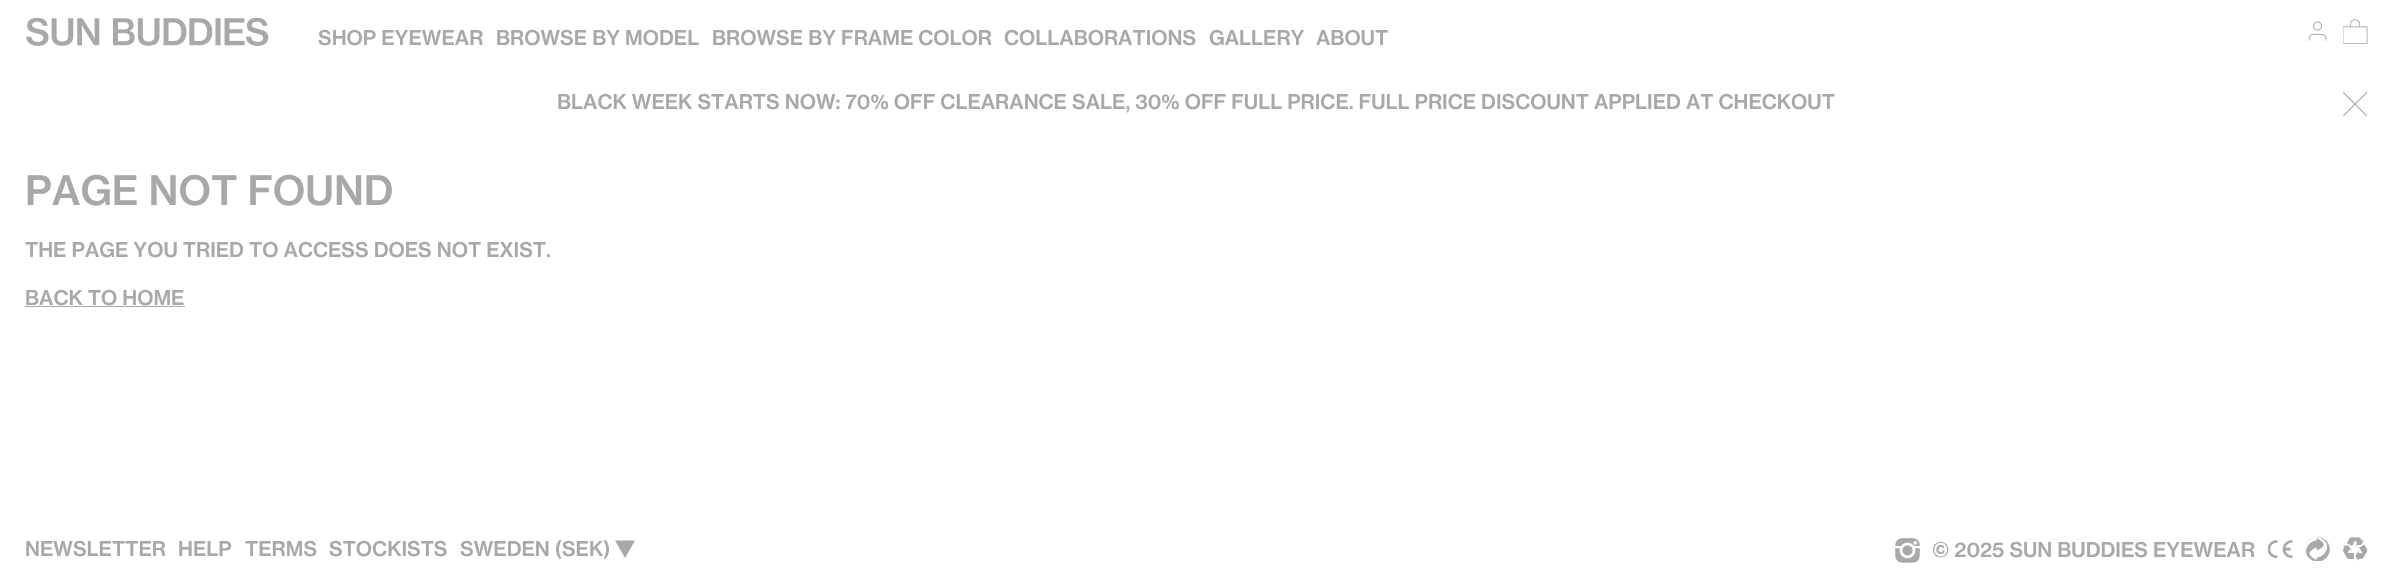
#include "include/core/SkBlurTypes.h"
#include "include/core/SkCanvas.h"
#include "include/core/SkData.h"
#include "include/core/SkFont.h"
#include "include/core/SkFontMgr.h"
#include "include/core/SkImage.h"
#include "include/core/SkMaskFilter.h"
#include "include/core/SkPaint.h"
#include "include/core/SkPathBuilder.h"
#include "include/core/SkTextBlob.h"
#include "include/effects/SkDashPathEffect.h"
#include "include/effects/SkGradientShader.h"
#include "include/utils/SkParsePath.h"

extern sk_sp<SkFontMgr> fontMgr;

void draw(SkCanvas* canvas) {
  SkPaint p;
  p.setAntiAlias(true);
  canvas->clear(SK_ColorWHITE);
  canvas->drawImageRect(SkImages::DeferredFromEncodedData(SkData::MakeFromFileName("images/1.png")), SkRect::MakeLTRB(26, 18, 269, 46), SkSamplingOptions());
  canvas->drawImageRect(SkImages::DeferredFromEncodedData(SkData::MakeFromFileName("images/2.png")), SkRect::MakeLTRB(2308, 21, 2327, 41), SkSamplingOptions());
  canvas->drawImageRect(SkImages::DeferredFromEncodedData(SkData::MakeFromFileName("images/3.png")), SkRect::MakeLTRB(2343, 19, 2368, 44), SkSamplingOptions());
  canvas->drawImageRect(SkImages::DeferredFromEncodedData(SkData::MakeFromFileName("images/4.png")), SkRect::MakeLTRB(2343, 91, 2368, 116), SkSamplingOptions());
  p.setColor(SkColorSetRGB(167, 168, 170));
  canvas->drawRect(SkRect::MakeLTRB(25, 306, 185, 307), p);
  canvas->drawPath(SkPathBuilder().moveTo(615, 540.5f).lineTo(625, 558).lineTo(635, 540.5f).close().detach(), p);
  canvas->drawImageRect(SkImages::DeferredFromEncodedData(SkData::MakeFromFileName("images/5.png")), SkRect::MakeLTRB(1895, 538, 1920, 563), SkSamplingOptions());
  canvas->drawImageRect(SkImages::DeferredFromEncodedData(SkData::MakeFromFileName("images/6.png")), SkRect::MakeLTRB(2268, 540, 2293, 558), SkSamplingOptions());
  canvas->drawImageRect(SkImages::DeferredFromEncodedData(SkData::MakeFromFileName("images/7.png")), SkRect::MakeLTRB(2305, 536, 2330, 561), SkSamplingOptions());
  canvas->drawImageRect(SkImages::DeferredFromEncodedData(SkData::MakeFromFileName("images/8.png")), SkRect::MakeLTRB(2343, 537, 2368, 561), SkSamplingOptions());
  SkFont font1(fontMgr->matchFamilyStyle("Neue Haas Grotesk", SkFontStyle(500, SkFontStyle::kNormal_Width, SkFontStyle::kUpright_Slant)), 20);
  font1.setSubpixel(true);
  canvas->drawString("SHOP EYEWEAR", 318, 45, font1, p);
  canvas->drawString("BROWSE BY MODEL", 496, 45, font1, p);
  canvas->drawString("BROWSE BY FRAME COLOR", 712, 45, font1, p);
  canvas->drawString("COLLABORATIONS", 1004, 45, font1, p);
  canvas->drawString("GALLERY", 1209, 45, font1, p);
  canvas->drawString("ABOUT", 1316, 45, font1, p);
  canvas->drawString("BLACK WEEK STARTS NOW: 70% OFF CLEARANCE SALE, 30% OFF FULL PRICE. FULL PRICE DISCOUNT APPLIED AT CHECKOUT", 557, 109, font1, p);
  SkFont font2(fontMgr->matchFamilyStyle("Neue Haas Grotesk", SkFontStyle(500, SkFontStyle::kNormal_Width, SkFontStyle::kUpright_Slant)), 40);
  font2.setSubpixel(true);
  canvas->drawString("PAGE NOT FOUND", 25, 205, font2, p);
  canvas->drawString("THE PAGE YOU TRIED TO ACCESS DOES NOT EXIST.", 25, 257, font1, p);
  canvas->drawString("BACK TO HOME", 25, 305, font1, p);
  canvas->drawString("NEWSLETTER", 25, 556, font1, p);
  canvas->drawString("HELP", 178, 556, font1, p);
  canvas->drawString("TERMS", 245, 556, font1, p);
  canvas->drawString("STOCKISTS", 329, 556, font1, p);
  canvas->drawString("SWEDEN (SEK)", 460, 556, font1, p);
  canvas->drawString("© 2025 SUN BUDDIES EYEWEAR", 1932, 557, font1, p);
}
